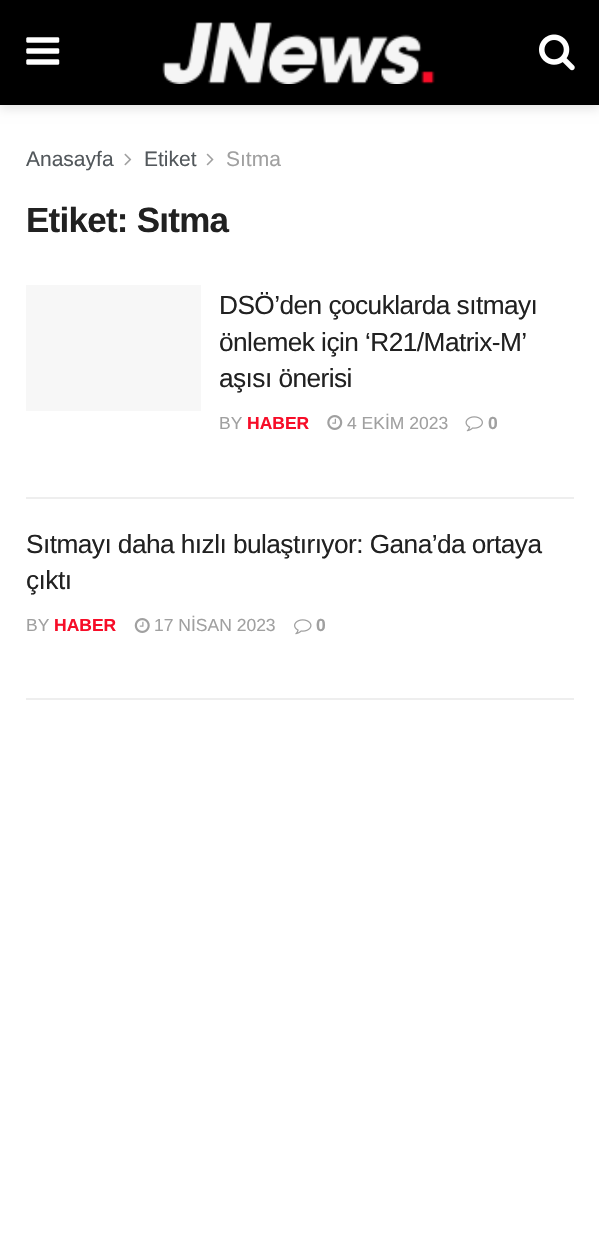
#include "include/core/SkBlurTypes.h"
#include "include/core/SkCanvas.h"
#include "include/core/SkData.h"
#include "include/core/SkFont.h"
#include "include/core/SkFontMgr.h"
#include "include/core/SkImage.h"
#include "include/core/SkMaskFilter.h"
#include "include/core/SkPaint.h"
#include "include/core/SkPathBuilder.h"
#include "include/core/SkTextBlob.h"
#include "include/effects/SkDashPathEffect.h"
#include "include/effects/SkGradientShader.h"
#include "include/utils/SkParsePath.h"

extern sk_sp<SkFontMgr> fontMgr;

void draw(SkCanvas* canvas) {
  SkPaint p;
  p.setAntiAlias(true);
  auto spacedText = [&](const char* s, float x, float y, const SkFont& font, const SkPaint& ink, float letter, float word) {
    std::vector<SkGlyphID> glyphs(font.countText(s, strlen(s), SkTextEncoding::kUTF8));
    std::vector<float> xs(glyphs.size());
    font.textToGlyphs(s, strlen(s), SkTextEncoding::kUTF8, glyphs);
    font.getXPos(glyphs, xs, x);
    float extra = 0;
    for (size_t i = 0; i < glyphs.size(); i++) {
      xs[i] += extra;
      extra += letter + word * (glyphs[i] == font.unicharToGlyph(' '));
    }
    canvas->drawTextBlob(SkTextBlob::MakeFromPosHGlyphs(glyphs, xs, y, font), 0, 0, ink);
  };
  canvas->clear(SK_ColorWHITE);
  p.setColor(SkColorSetARGB(26, 0, 0, 0));
  p.setMaskFilter(SkMaskFilter::MakeBlur(kNormal_SkBlurStyle, 5));
  canvas->drawRect(SkRect::MakeLTRB(0, 4, 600, 109), p);
  p.setMaskFilter(nullptr);
  p.setColor(SK_ColorBLACK);
  canvas->drawRect(SkRect::MakeLTRB(0, 0, 599, 105), p);
  canvas->drawImageRect(SkImages::DeferredFromEncodedData(SkData::MakeFromFileName("images/1.png")), SkRect::MakeLTRB(26, 37, 60, 65), SkSamplingOptions());
  canvas->drawImageRect(SkImages::DeferredFromEncodedData(SkData::MakeFromFileName("images/2.png")), SkRect::MakeLTRB(162, 22, 435, 84), SkSamplingOptions());
  canvas->drawImageRect(SkImages::DeferredFromEncodedData(SkData::MakeFromFileName("images/3.png")), SkRect::MakeLTRB(539, 34, 575, 71), SkSamplingOptions());
  canvas->drawImageRect(SkImages::DeferredFromEncodedData(SkData::MakeFromFileName("images/4.png")), SkRect::MakeLTRB(124, 153, 132, 166), SkSamplingOptions());
  canvas->drawImageRect(SkImages::DeferredFromEncodedData(SkData::MakeFromFileName("images/5.png")), SkRect::MakeLTRB(206, 153, 214, 166), SkSamplingOptions());
  p.setColor(SkColorSetRGB(238, 238, 238));
  canvas->drawRect(SkRect::MakeLTRB(26, 497, 574, 499), p);
  p.setColor(SkColorSetRGB(247, 247, 247));
  canvas->drawRect(SkRect::MakeLTRB(26, 285, 201, 411), p);
  canvas->drawImageRect(SkImages::DeferredFromEncodedData(SkData::MakeFromFileName("images/6.png")), SkRect::MakeLTRB(327, 415, 343, 430), SkSamplingOptions());
  canvas->drawImageRect(SkImages::DeferredFromEncodedData(SkData::MakeFromFileName("images/7.png")), SkRect::MakeLTRB(465, 416, 483, 432), SkSamplingOptions());
  p.setColor(SkColorSetRGB(238, 238, 238));
  canvas->drawRect(SkRect::MakeLTRB(26, 698, 574, 700), p);
  canvas->drawImageRect(SkImages::DeferredFromEncodedData(SkData::MakeFromFileName("images/8.png")), SkRect::MakeLTRB(134, 618, 150, 633), SkSamplingOptions());
  canvas->drawImageRect(SkImages::DeferredFromEncodedData(SkData::MakeFromFileName("images/9.png")), SkRect::MakeLTRB(294, 619, 312, 635), SkSamplingOptions());
  SkFont font1(fontMgr->matchFamilyStyle("Liberation Sans", SkFontStyle::Normal()), 21);
  font1.setSubpixel(true);
  p.setColor(SkColorSetRGB(83, 88, 92));
  canvas->drawString("Anasayfa", 26, 166, font1, p);
  canvas->drawString("Etiket", 144, 166, font1, p);
  p.setColor(SkColorSetRGB(160, 160, 160));
  canvas->drawString("Sıtma", 226, 166, font1, p);
  SkFont font2(fontMgr->matchFamilyStyle("Liberation Sans", SkFontStyle::Bold()), 35);
  font2.setSubpixel(true);
  p.setColor(SkColorSetRGB(33, 33, 33));
  spacedText("Etiket: Sıtma", 26, 232, font2, p, -0.75f, 0);
  SkFont font3(fontMgr->matchFamilyStyle("Liberation Sans", SkFontStyle::Normal()), 26.25f);
  font3.setSubpixel(true);
  spacedText("DSÖ’den çocuklarda sıtmayı", 219, 314, font3, p, -0.55f, 0);
  spacedText("önlemek için ‘R21/Matrix-M’", 219, 351, font3, p, -0.55f, 0);
  spacedText("aşısı önerisi", 219, 387, font3, p, -0.55f, 0);
  SkFont font4(fontMgr->matchFamilyStyle("Liberation Sans", SkFontStyle::Normal()), 17.5f);
  font4.setSubpixel(true);
  p.setColor(SkColorSetRGB(160, 160, 160));
  canvas->drawString("BY", 219, 429, font4, p);
  SkFont font5(fontMgr->matchFamilyStyle("Liberation Sans", SkFontStyle::Bold()), 17.5f);
  font5.setSubpixel(true);
  p.setColor(SkColorSetRGB(247, 13, 40));
  canvas->drawString("HABER", 247, 429, font5, p);
  p.setColor(SkColorSetRGB(160, 160, 160));
  canvas->drawString("4 EKİM 2023", 347, 429, font4, p);
  canvas->drawString("0", 488, 429, font5, p);
  p.setColor(SkColorSetRGB(33, 33, 33));
  spacedText("Sıtmayı daha hızlı bulaştırıyor: Gana’da ortaya", 26, 553, font3, p, -0.55f, 0);
  spacedText("çıktı", 26, 589, font3, p, -0.55f, 0);
  p.setColor(SkColorSetRGB(160, 160, 160));
  canvas->drawString("BY", 26, 631, font4, p);
  p.setColor(SkColorSetRGB(247, 13, 40));
  canvas->drawString("HABER", 54, 631, font5, p);
  p.setColor(SkColorSetRGB(160, 160, 160));
  canvas->drawString("17 NİSAN 2023", 154, 631, font4, p);
  canvas->drawString("0", 316, 631, font5, p);
}
